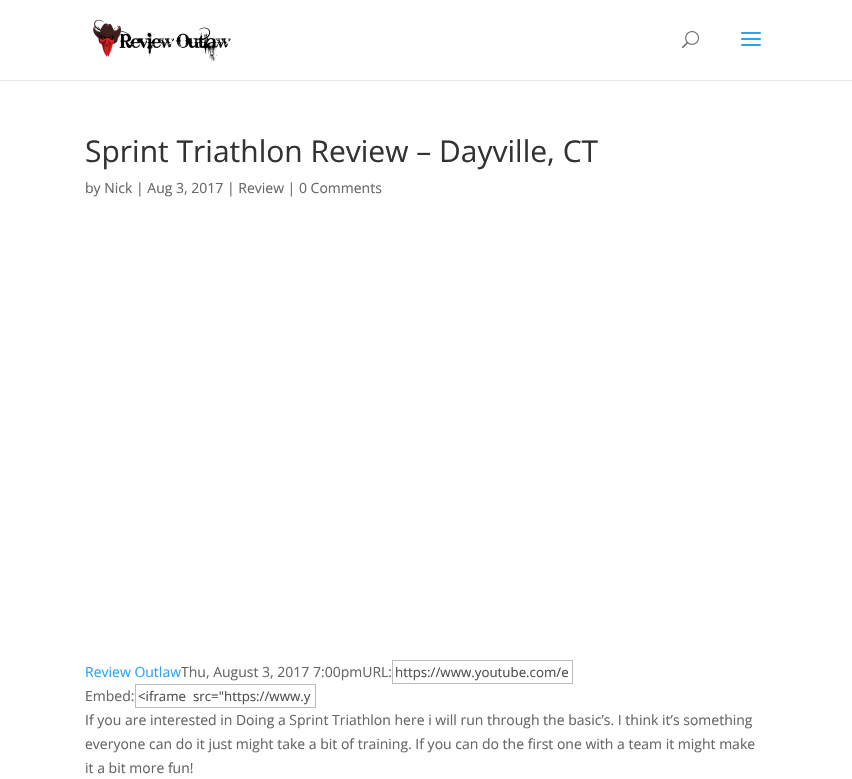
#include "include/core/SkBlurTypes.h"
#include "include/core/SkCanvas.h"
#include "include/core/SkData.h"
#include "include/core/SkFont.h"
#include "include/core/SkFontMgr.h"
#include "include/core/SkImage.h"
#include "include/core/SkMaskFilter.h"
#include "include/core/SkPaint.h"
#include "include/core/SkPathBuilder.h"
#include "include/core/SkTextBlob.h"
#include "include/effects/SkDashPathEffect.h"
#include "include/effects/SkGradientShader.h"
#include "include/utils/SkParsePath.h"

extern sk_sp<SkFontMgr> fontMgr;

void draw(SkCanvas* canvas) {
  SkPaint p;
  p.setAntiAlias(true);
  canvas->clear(SK_ColorWHITE);
  p.setColor(SkColorSetRGB(230, 230, 230));
  canvas->drawRect(SkRect::MakeLTRB(0, 80, 852, 81), p);
  canvas->drawImageRect(SkImages::DeferredFromEncodedData(SkData::MakeFromFileName("images/1.png")), SkRect::MakeLTRB(93, 19, 231, 61), SkSamplingOptions());
  canvas->drawImageRect(SkImages::DeferredFromEncodedData(SkData::MakeFromFileName("images/2.png")), SkRect::MakeLTRB(682, 31, 699, 49), SkSamplingOptions());
  canvas->drawImageRect(SkImages::DeferredFromEncodedData(SkData::MakeFromFileName("images/3.png")), SkRect::MakeLTRB(741, 32, 761, 46), SkSamplingOptions());
  p.setStyle(SkPaint::kStroke_Style);
  p.setStrokeWidth(1);
  p.setColor(SkColorSetRGB(187, 187, 187));
  canvas->drawRect(SkRect::MakeLTRB(392.5f, 660.5f, 572.5f, 683.5f), p);
  canvas->drawRect(SkRect::MakeLTRB(135.5f, 684.5f, 315.5f, 707.5f), p);
  SkFont font1(fontMgr->matchFamilyStyle("Open Sans", SkFontStyle::Normal()), 30);
  font1.setSubpixel(true);
  p.setStyle(SkPaint::kFill_Style);
  p.setColor(SkColorSetRGB(51, 51, 51));
  canvas->drawString("Sprint Triathlon Review – Dayville, CT", 85, 162, font1, p);
  SkFont font2(fontMgr->matchFamilyStyle("Open Sans", SkFontStyle::Normal()), 14);
  font2.setSubpixel(true);
  p.setColor(SkColorSetRGB(102, 102, 102));
  canvas->drawString("by Nick | Aug 3, 2017 | Review | 0 Comments", 85, 193, font2, p);
  p.setColor(SkColorSetRGB(46, 163, 242));
  canvas->drawString("Review Outlaw", 85, 677, font2, p);
  p.setColor(SkColorSetRGB(102, 102, 102));
  canvas->drawString("Thu, August 3, 2017 7:00pmURL:", 181, 677, font2, p);
  SkFont font3(fontMgr->matchFamilyStyle("Open Sans", SkFontStyle::Normal()), 13.3f);
  font3.setSubpixel(true);
  p.setColor(SkColorSetRGB(78, 78, 78));
  canvas->drawString("https://www.youtube.com/e", 395, 677, font3, p);
  p.setColor(SkColorSetRGB(102, 102, 102));
  canvas->drawString("Embed:", 85, 701, font2, p);
  p.setColor(SkColorSetRGB(78, 78, 78));
  canvas->drawString("<iframe  src=\"https://www.y", 138, 701, font3, p);
  p.setColor(SkColorSetRGB(102, 102, 102));
  canvas->drawString("If you are interested in Doing a Sprint Triathlon here i will run through the basic’s. I think it’s something", 85, 725, font2, p);
  canvas->drawString("everyone can do it just might take a bit of training. If you can do the first one with a team it might make", 85, 749, font2, p);
  canvas->drawString("it a bit more fun!", 85, 773, font2, p);
}
